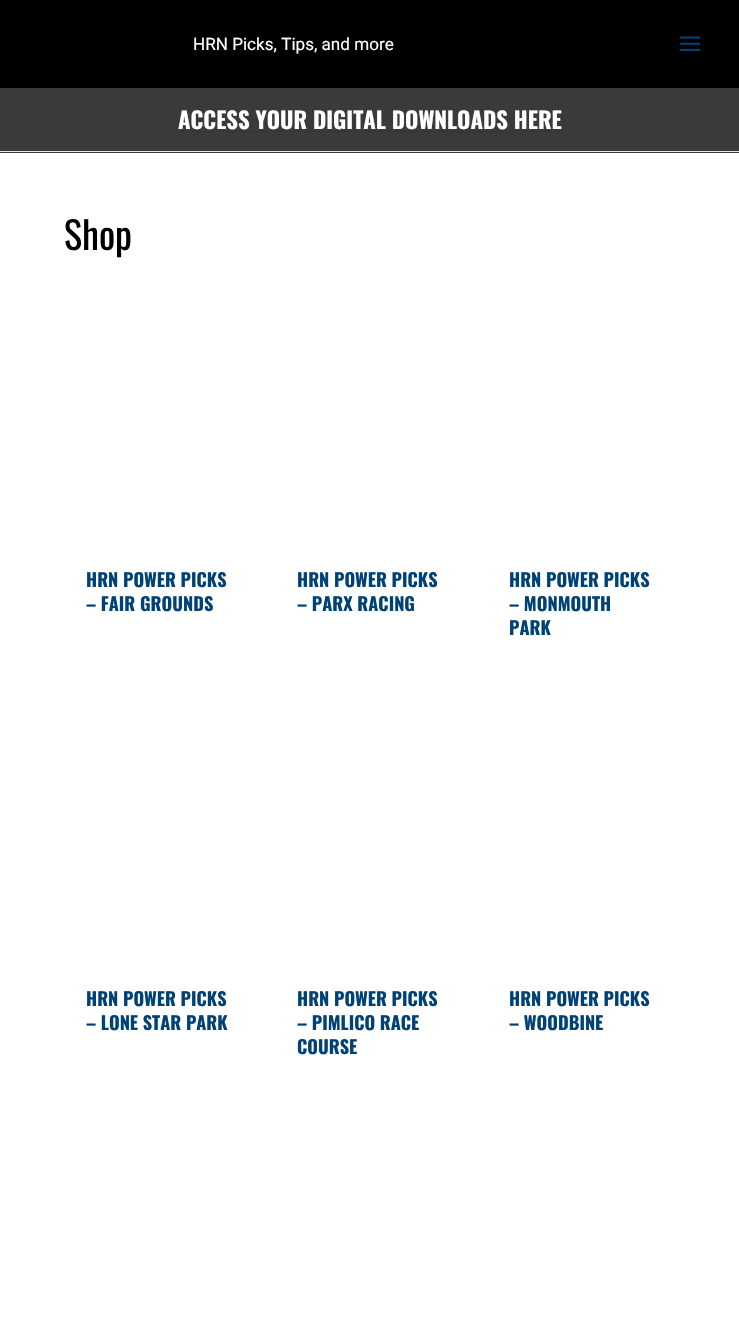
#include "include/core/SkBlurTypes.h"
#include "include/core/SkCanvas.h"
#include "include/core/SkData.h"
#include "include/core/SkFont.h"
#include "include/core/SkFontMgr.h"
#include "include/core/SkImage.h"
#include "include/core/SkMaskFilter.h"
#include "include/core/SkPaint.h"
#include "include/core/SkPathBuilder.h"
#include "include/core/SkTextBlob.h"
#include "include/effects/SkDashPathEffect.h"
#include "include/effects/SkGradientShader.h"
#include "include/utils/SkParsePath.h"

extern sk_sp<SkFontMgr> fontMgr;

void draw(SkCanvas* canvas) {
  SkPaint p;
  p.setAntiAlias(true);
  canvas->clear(SK_ColorWHITE);
  p.setColor(SK_ColorBLACK);
  canvas->drawRect(SkRect::MakeLTRB(0, 0, 739, 88), p);
  canvas->drawImageRect(SkImages::DeferredFromEncodedData(SkData::MakeFromFileName("images/1.png")), SkRect::MakeLTRB(679, 36, 701, 52), SkSamplingOptions());
  p.setColor(SkColorSetRGB(58, 58, 58));
  canvas->drawRect(SkRect::MakeLTRB(0, 88, 739, 153), p);
  p.setColor(SkColorSetRGB(229, 229, 229));
  canvas->drawRect(SkRect::MakeLTRB(0, 151, 739, 152), p);
  p.setColor(SkColorSetRGB(0, 66, 118));
  canvas->drawRect(SkRect::MakeLTRB(178, 131, 563, 132), p);
  SkFont font1(fontMgr->matchFamilyStyle("Roboto", SkFontStyle::Normal()), 17.1f);
  font1.setSubpixel(true);
  p.setColor(SK_ColorWHITE);
  canvas->drawString("HRN Picks, Tips, and more", 193, 50, font1, p);
  SkFont font2(fontMgr->matchFamilyStyle("Oswald", SkFontStyle::Bold()), 22.75f);
  font2.setSubpixel(true);
  canvas->drawString("ACCESS YOUR DIGITAL DOWNLOADS HERE", 178, 129, font2, p);
  SkFont font3(fontMgr->matchFamilyStyle("Oswald", SkFontStyle::Normal()), 38);
  font3.setSubpixel(true);
  p.setColor(SK_ColorBLACK);
  canvas->drawString("Shop", 64, 250, font3, p);
  SkFont font4(fontMgr->matchFamilyStyle("Oswald", SkFontStyle::Bold()), 18.25f);
  font4.setSubpixel(true);
  p.setColor(SkColorSetRGB(0, 66, 118));
  canvas->drawString("HRN POWER PICKS", 86, 587, font4, p);
  canvas->drawString("– FAIR GROUNDS", 86, 611, font4, p);
  canvas->drawString("HRN POWER PICKS", 297, 587, font4, p);
  canvas->drawString("– PARX RACING", 297, 611, font4, p);
  canvas->drawString("HRN POWER PICKS", 509, 587, font4, p);
  canvas->drawString("– MONMOUTH", 509, 611, font4, p);
  canvas->drawString("PARK", 509, 635, font4, p);
  canvas->drawString("HRN POWER PICKS", 86, 1006, font4, p);
  canvas->drawString("– LONE STAR PARK", 86, 1030, font4, p);
  canvas->drawString("HRN POWER PICKS", 297, 1006, font4, p);
  canvas->drawString("– PIMLICO RACE", 297, 1030, font4, p);
  canvas->drawString("COURSE", 297, 1054, font4, p);
  canvas->drawString("HRN POWER PICKS", 509, 1006, font4, p);
  canvas->drawString("– WOODBINE", 509, 1030, font4, p);
}
